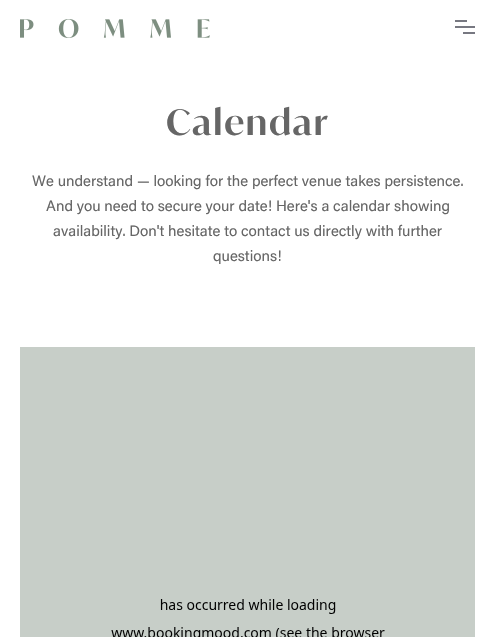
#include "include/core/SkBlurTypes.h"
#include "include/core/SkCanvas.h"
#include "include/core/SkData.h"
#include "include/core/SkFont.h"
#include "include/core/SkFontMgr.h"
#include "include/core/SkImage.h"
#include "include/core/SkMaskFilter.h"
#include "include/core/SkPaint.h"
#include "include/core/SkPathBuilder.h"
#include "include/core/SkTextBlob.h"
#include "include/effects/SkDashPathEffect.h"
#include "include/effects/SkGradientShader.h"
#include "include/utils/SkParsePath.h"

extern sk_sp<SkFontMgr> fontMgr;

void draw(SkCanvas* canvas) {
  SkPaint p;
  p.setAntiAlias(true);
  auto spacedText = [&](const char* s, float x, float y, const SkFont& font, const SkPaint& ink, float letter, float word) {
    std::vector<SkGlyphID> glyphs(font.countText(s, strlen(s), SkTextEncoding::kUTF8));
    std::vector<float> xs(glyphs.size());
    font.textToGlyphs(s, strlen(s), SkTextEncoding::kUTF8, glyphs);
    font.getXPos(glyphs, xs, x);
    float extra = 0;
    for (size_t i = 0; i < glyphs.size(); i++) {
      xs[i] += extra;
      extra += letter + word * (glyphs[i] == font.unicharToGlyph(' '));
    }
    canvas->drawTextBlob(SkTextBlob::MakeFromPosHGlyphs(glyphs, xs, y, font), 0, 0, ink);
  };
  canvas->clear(SK_ColorWHITE);
  canvas->drawImageRect(SkImages::DeferredFromEncodedData(SkData::MakeFromFileName("images/1.png")), SkRect::MakeLTRB(20, 19, 210, 38), SkSamplingOptions());
  canvas->drawImageRect(SkImages::DeferredFromEncodedData(SkData::MakeFromFileName("images/2.png")), SkRect::MakeLTRB(455, 20, 475, 34), SkSamplingOptions());
  p.setColor(SkColorSetRGB(199, 206, 200));
  canvas->drawRect(SkRect::MakeLTRB(20, 347, 475, 637), p);
  canvas->drawImageRect(SkImages::DeferredFromEncodedData(SkData::MakeFromFileName("images/3.png")), SkRect::MakeLTRB(111, 599, 385, 637), SkSamplingOptions());
  SkFont font1(fontMgr->matchFamilyStyle("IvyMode", SkFontStyle(600, SkFontStyle::kNormal_Width, SkFontStyle::kUpright_Slant)), 35);
  font1.setSubpixel(true);
  p.setColor(SkColorSetRGB(102, 102, 102));
  spacedText("Calendar", 166, 135, font1, p, 1.75f, 0);
  SkFont font2(fontMgr->matchFamilyStyle("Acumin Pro", SkFontStyle::Normal()), 15);
  font2.setSubpixel(true);
  canvas->drawString("We understand — looking for the perfect venue takes persistence.", 32, 186, font2, p);
  canvas->drawString("And you need to secure your date! Here's a calendar showing", 46, 211, font2, p);
  canvas->drawString("availability. Don't hesitate to contact us directly with further", 53, 236, font2, p);
  canvas->drawString("questions!", 213, 261, font2, p);
}
